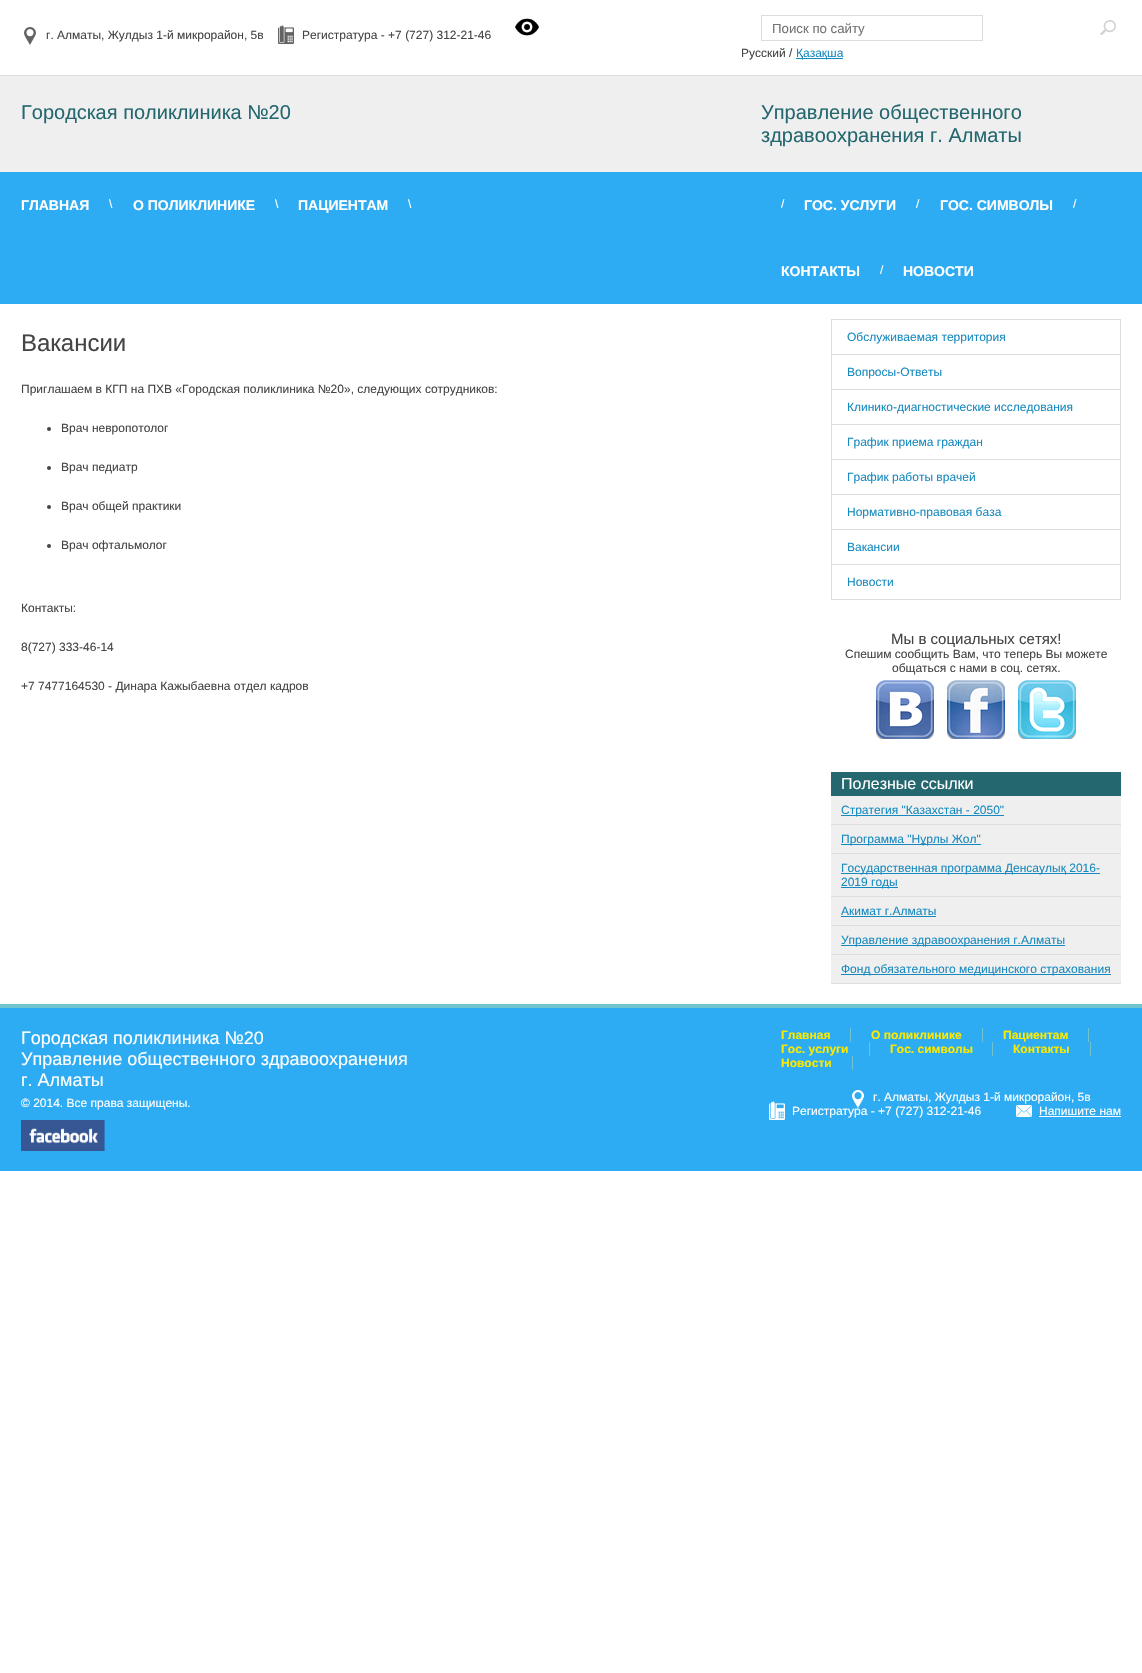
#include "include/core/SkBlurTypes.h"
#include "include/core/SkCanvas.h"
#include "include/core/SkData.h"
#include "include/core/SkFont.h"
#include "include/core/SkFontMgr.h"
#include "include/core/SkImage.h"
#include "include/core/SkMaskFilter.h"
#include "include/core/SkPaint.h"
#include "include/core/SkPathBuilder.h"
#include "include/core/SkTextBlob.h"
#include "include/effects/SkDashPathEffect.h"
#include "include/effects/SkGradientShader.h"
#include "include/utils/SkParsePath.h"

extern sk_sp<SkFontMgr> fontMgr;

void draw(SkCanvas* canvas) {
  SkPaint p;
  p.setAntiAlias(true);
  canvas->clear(SK_ColorWHITE);
  canvas->drawImageRect(SkImages::DeferredFromEncodedData(SkData::MakeFromFileName("images/1.png")), SkRect::MakeLTRB(24, 27, 36, 45), SkSamplingOptions());
  canvas->drawImageRect(SkImages::DeferredFromEncodedData(SkData::MakeFromFileName("images/2.png")), SkRect::MakeLTRB(278, 25, 294, 44), SkSamplingOptions());
  canvas->drawImageRect(SkImages::DeferredFromEncodedData(SkData::MakeFromFileName("images/3.png")), SkRect::MakeLTRB(515, 18, 539, 36), SkSamplingOptions());
  p.setStyle(SkPaint::kStroke_Style);
  p.setStrokeWidth(1);
  p.setColor(SkColorSetRGB(221, 221, 221));
  canvas->drawRect(SkRect::MakeLTRB(761.5f, 15.5f, 982.5f, 40.5f), p);
  canvas->drawImageRect(SkImages::DeferredFromEncodedData(SkData::MakeFromFileName("images/4.png")), SkRect::MakeLTRB(1100, 20, 1116, 35), SkSamplingOptions());
  p.setStyle(SkPaint::kFill_Style);
  p.setColor(SkColorSetRGB(24, 138, 191));
  canvas->drawRect(SkRect::MakeLTRB(796, 58, 843, 59), p);
  p.setColor(SkColorSetRGB(239, 239, 239));
  canvas->drawRect(SkRect::MakeLTRB(0, 76, 1142, 172), p);
  p.setColor(SkColorSetRGB(221, 221, 221));
  canvas->drawRect(SkRect::MakeLTRB(0, 75, 1142, 76), p);
  p.setColor(SkColorSetRGB(45, 172, 243));
  canvas->drawRect(SkRect::MakeLTRB(0, 172, 1142, 304), p);
  p.setColor(SkColorSetRGB(68, 68, 68));
  canvas->drawCircle(49, 429, 2, p);
  canvas->drawCircle(49, 468, 2, p);
  canvas->drawCircle(49, 507, 2, p);
  canvas->drawCircle(49, 546, 2, p);
  p.setStyle(SkPaint::kStroke_Style);
  p.setColor(SkColorSetRGB(221, 221, 221));
  canvas->drawRect(SkRect::MakeLTRB(831.5f, 319.5f, 1120.5f, 599.5f), p);
  p.setStyle(SkPaint::kFill_Style);
  canvas->drawRect(SkRect::MakeLTRB(832, 354, 1120, 355), p);
  canvas->drawRect(SkRect::MakeLTRB(832, 389, 1120, 390), p);
  canvas->drawRect(SkRect::MakeLTRB(832, 424, 1120, 425), p);
  canvas->drawRect(SkRect::MakeLTRB(832, 459, 1120, 460), p);
  canvas->drawRect(SkRect::MakeLTRB(832, 494, 1120, 495), p);
  canvas->drawRect(SkRect::MakeLTRB(832, 529, 1120, 530), p);
  canvas->drawRect(SkRect::MakeLTRB(832, 564, 1120, 565), p);
  canvas->drawImageRect(SkImages::DeferredFromEncodedData(SkData::MakeFromFileName("images/5.png")), SkRect::MakeLTRB(876, 680, 934, 739), SkSamplingOptions());
  canvas->drawImageRect(SkImages::DeferredFromEncodedData(SkData::MakeFromFileName("images/6.png")), SkRect::MakeLTRB(947, 680, 1005, 739), SkSamplingOptions());
  canvas->drawImageRect(SkImages::DeferredFromEncodedData(SkData::MakeFromFileName("images/7.png")), SkRect::MakeLTRB(1018, 680, 1076, 739), SkSamplingOptions());
  p.setColor(SkColorSetRGB(36, 103, 111));
  canvas->drawRect(SkRect::MakeLTRB(831, 772, 1121, 796), p);
  p.setColor(SkColorSetRGB(239, 239, 239));
  canvas->drawRect(SkRect::MakeLTRB(831, 796, 1121, 824), p);
  p.setColor(SkColorSetRGB(221, 221, 221));
  canvas->drawRect(SkRect::MakeLTRB(831, 824, 1121, 825), p);
  p.setColor(SkColorSetRGB(24, 138, 191));
  canvas->drawRect(SkRect::MakeLTRB(841, 815, 1004, 816), p);
  p.setColor(SkColorSetRGB(239, 239, 239));
  canvas->drawRect(SkRect::MakeLTRB(831, 825, 1121, 853), p);
  p.setColor(SkColorSetRGB(221, 221, 221));
  canvas->drawRect(SkRect::MakeLTRB(831, 853, 1121, 854), p);
  p.setColor(SkColorSetRGB(24, 138, 191));
  canvas->drawRect(SkRect::MakeLTRB(841, 844, 981, 845), p);
  p.setColor(SkColorSetRGB(239, 239, 239));
  canvas->drawRect(SkRect::MakeLTRB(831, 854, 1121, 896), p);
  p.setColor(SkColorSetRGB(221, 221, 221));
  canvas->drawRect(SkRect::MakeLTRB(831, 896, 1121, 897), p);
  p.setColor(SkColorSetRGB(24, 138, 191));
  canvas->drawRect(SkRect::MakeLTRB(841, 873, 1100, 874), p);
  canvas->drawRect(SkRect::MakeLTRB(841, 887, 898, 888), p);
  p.setColor(SkColorSetRGB(239, 239, 239));
  canvas->drawRect(SkRect::MakeLTRB(831, 897, 1121, 925), p);
  p.setColor(SkColorSetRGB(221, 221, 221));
  canvas->drawRect(SkRect::MakeLTRB(831, 925, 1121, 926), p);
  p.setColor(SkColorSetRGB(24, 138, 191));
  canvas->drawRect(SkRect::MakeLTRB(841, 916, 936, 917), p);
  p.setColor(SkColorSetRGB(239, 239, 239));
  canvas->drawRect(SkRect::MakeLTRB(831, 926, 1121, 954), p);
  p.setColor(SkColorSetRGB(221, 221, 221));
  canvas->drawRect(SkRect::MakeLTRB(831, 954, 1121, 955), p);
  p.setColor(SkColorSetRGB(24, 138, 191));
  canvas->drawRect(SkRect::MakeLTRB(841, 945, 1065, 946), p);
  p.setColor(SkColorSetRGB(239, 239, 239));
  canvas->drawRect(SkRect::MakeLTRB(831, 955, 1121, 983), p);
  p.setColor(SkColorSetRGB(221, 221, 221));
  canvas->drawRect(SkRect::MakeLTRB(831, 983, 1121, 984), p);
  p.setColor(SkColorSetRGB(24, 138, 191));
  canvas->drawRect(SkRect::MakeLTRB(841, 974, 1111, 975), p);
  p.setColor(SkColorSetRGB(45, 172, 243));
  canvas->drawRect(SkRect::MakeLTRB(0, 1008, 1142, 1171), p);
  p.setColor(SkColorSetRGB(112, 196, 206));
  canvas->drawRect(SkRect::MakeLTRB(0, 1004, 1142, 1008), p);
  canvas->drawImageRect(SkImages::DeferredFromEncodedData(SkData::MakeFromFileName("images/8.png")), SkRect::MakeLTRB(21, 1120, 105, 1151), SkSamplingOptions());
  canvas->drawRect(SkRect::MakeLTRB(850, 1028, 851, 1042), p);
  canvas->drawRect(SkRect::MakeLTRB(982, 1028, 983, 1042), p);
  canvas->drawRect(SkRect::MakeLTRB(1088, 1028, 1089, 1042), p);
  canvas->drawRect(SkRect::MakeLTRB(869, 1042, 870, 1056), p);
  canvas->drawRect(SkRect::MakeLTRB(992, 1042, 993, 1056), p);
  canvas->drawRect(SkRect::MakeLTRB(1090, 1042, 1091, 1056), p);
  canvas->drawRect(SkRect::MakeLTRB(852, 1056, 853, 1070), p);
  canvas->drawImageRect(SkImages::DeferredFromEncodedData(SkData::MakeFromFileName("images/9.png")), SkRect::MakeLTRB(852, 1090, 864, 1108), SkSamplingOptions());
  canvas->drawImageRect(SkImages::DeferredFromEncodedData(SkData::MakeFromFileName("images/10.png")), SkRect::MakeLTRB(769, 1101, 785, 1120), SkSamplingOptions());
  canvas->drawImageRect(SkImages::DeferredFromEncodedData(SkData::MakeFromFileName("images/11.png")), SkRect::MakeLTRB(1016, 1105, 1032, 1117), SkSamplingOptions());
  p.setColor(SK_ColorWHITE);
  canvas->drawRect(SkRect::MakeLTRB(1039, 1116, 1121, 1117), p);
  SkFont font1(fontMgr->matchFamilyStyle("Liberation Sans", SkFontStyle::Normal()), 12);
  font1.setSubpixel(true);
  p.setColor(SkColorSetRGB(68, 68, 68));
  canvas->drawString("г. Алматы, Жулдыз 1-й микрорайон, 5в", 46, 39, font1, p);
  canvas->drawString("Регистратура - +7 (727) 312-21-46", 302, 39, font1, p);
  SkFont font2(fontMgr->matchFamilyStyle("Liberation Sans", SkFontStyle::Normal()), 13.25f);
  font2.setSubpixel(true);
  p.setColor(SkColorSetRGB(117, 117, 117));
  canvas->drawString("Поиск по сайту", 772, 33, font2, p);
  p.setColor(SkColorSetRGB(68, 68, 68));
  canvas->drawString("Русский /", 741, 57, font1, p);
  p.setColor(SkColorSetRGB(24, 138, 191));
  canvas->drawString("Қазақша", 796, 57, font1, p);
  SkFont font3(fontMgr->matchFamilyStyle("Liberation Sans", SkFontStyle::Normal()), 20);
  font3.setSubpixel(true);
  p.setColor(SkColorSetRGB(36, 103, 111));
  canvas->drawString("Городская поликлиника №20", 21, 119, font3, p);
  canvas->drawString("Управление общественного", 761, 119, font3, p);
  canvas->drawString("здравоохранения г. Алматы", 761, 142, font3, p);
  SkFont font4(fontMgr->matchFamilyStyle("Liberation Sans", SkFontStyle::Bold()), 14);
  font4.setSubpixel(true);
  p.setColor(SK_ColorWHITE);
  canvas->drawString("ГЛАВНАЯ", 21, 210, font4, p);
  canvas->drawString("\\", 109, 208, font1, p);
  canvas->drawString("О ПОЛИКЛИНИКЕ", 133, 210, font4, p);
  canvas->drawString("\\", 275, 208, font1, p);
  canvas->drawString("ПАЦИЕНТАМ", 298, 210, font4, p);
  canvas->drawString("\\", 408, 208, font1, p);
  canvas->drawString("/", 781, 208, font1, p);
  canvas->drawString("ГОС. УСЛУГИ", 804, 210, font4, p);
  canvas->drawString("/", 916, 208, font1, p);
  canvas->drawString("ГОС. СИМВОЛЫ", 940, 210, font4, p);
  canvas->drawString("/", 1073, 208, font1, p);
  canvas->drawString("КОНТАКТЫ", 781, 276, font4, p);
  canvas->drawString("/", 880, 274, font1, p);
  canvas->drawString("НОВОСТИ", 903, 276, font4, p);
  SkFont font5(fontMgr->matchFamilyStyle("Liberation Sans", SkFontStyle::Normal()), 24);
  font5.setSubpixel(true);
  p.setColor(SkColorSetRGB(68, 68, 68));
  canvas->drawString("Вакансии", 21, 351, font5, p);
  canvas->drawString("Приглашаем в КГП на ПХВ «Городская поликлиника №20», следующих сотрудников:", 21, 393, font1, p);
  canvas->drawString("Врач невропотолог", 61, 432, font1, p);
  canvas->drawString("Врач педиатр", 61, 471, font1, p);
  canvas->drawString("Врач общей практики", 61, 510, font1, p);
  canvas->drawString("Врач офтальмолог", 61, 549, font1, p);
  canvas->drawString("Контакты:", 21, 612, font1, p);
  canvas->drawString("8(727) 333-46-14", 21, 651, font1, p);
  canvas->drawString("+7 7477164530 - Динара Кажыбаевна отдел кадров", 21, 690, font1, p);
  p.setColor(SkColorSetRGB(24, 138, 191));
  canvas->drawString("Обслуживаемая территория", 847, 341, font1, p);
  canvas->drawString("Вопросы-Ответы", 847, 376, font1, p);
  canvas->drawString("Клинико-диагностические исследования", 847, 411, font1, p);
  canvas->drawString("График приема граждан", 847, 446, font1, p);
  canvas->drawString("График работы врачей", 847, 481, font1, p);
  canvas->drawString("Нормативно-правовая база", 847, 516, font1, p);
  canvas->drawString("Вакансии", 847, 551, font1, p);
  canvas->drawString("Новости", 847, 586, font1, p);
  SkFont font6(fontMgr->matchFamilyStyle("Liberation Sans", SkFontStyle::Normal()), 15);
  font6.setSubpixel(true);
  p.setColor(SkColorSetRGB(68, 68, 68));
  canvas->drawString("Мы в социальных сетях!", 891, 644, font6, p);
  canvas->drawString("Спешим сообщить Вам, что теперь Вы можете", 845, 658, font1, p);
  canvas->drawString("общаться с нами в соц. сетях.", 892, 672, font1, p);
  SkFont font7(fontMgr->matchFamilyStyle("Liberation Sans", SkFontStyle::Normal()), 16);
  font7.setSubpixel(true);
  p.setColor(SK_ColorWHITE);
  canvas->drawString("Полезные ссылки", 841, 789, font7, p);
  p.setColor(SkColorSetRGB(24, 138, 191));
  canvas->drawString("Стратегия \"Казахстан - 2050\"", 841, 814, font1, p);
  canvas->drawString("Программа \"Нұрлы Жол\"", 841, 843, font1, p);
  canvas->drawString("Государственная программа Денсаулық 2016-", 841, 872, font1, p);
  canvas->drawString("2019 годы", 841, 886, font1, p);
  canvas->drawString("Акимат г.Алматы", 841, 915, font1, p);
  canvas->drawString("Управление здравоохранения г.Алматы", 841, 944, font1, p);
  canvas->drawString("Фонд обязательного медицинского страхования", 841, 973, font1, p);
  SkFont font8(fontMgr->matchFamilyStyle("Liberation Sans", SkFontStyle::Normal()), 18);
  font8.setSubpixel(true);
  p.setColor(SK_ColorWHITE);
  canvas->drawString("Городская поликлиника №20", 21, 1044, font8, p);
  canvas->drawString("Управление общественного здравоохранения", 21, 1065, font8, p);
  canvas->drawString("г. Алматы", 21, 1086, font8, p);
  canvas->drawString("© 2014. Все права защищены.", 21, 1107, font1, p);
  SkFont font9(fontMgr->matchFamilyStyle("Liberation Sans", SkFontStyle::Bold()), 12);
  font9.setSubpixel(true);
  p.setColor(SkColorSetRGB(251, 234, 0));
  canvas->drawString("Главная", 781, 1039, font9, p);
  canvas->drawString("О поликлинике", 871, 1039, font9, p);
  canvas->drawString("Пациентам", 1003, 1039, font9, p);
  canvas->drawString("Гос. услуги", 781, 1053, font9, p);
  canvas->drawString("Гос. символы", 890, 1053, font9, p);
  canvas->drawString("Контакты", 1013, 1053, font9, p);
  canvas->drawString("Новости", 781, 1067, font9, p);
  p.setColor(SK_ColorWHITE);
  canvas->drawString("г. Алматы, Жулдыз 1-й микрорайон, 5в", 873, 1101, font1, p);
  canvas->drawString("Регистратура - +7 (727) 312-21-46", 792, 1115, font1, p);
  canvas->drawString("Напишите нам", 1039, 1115, font1, p);
}
